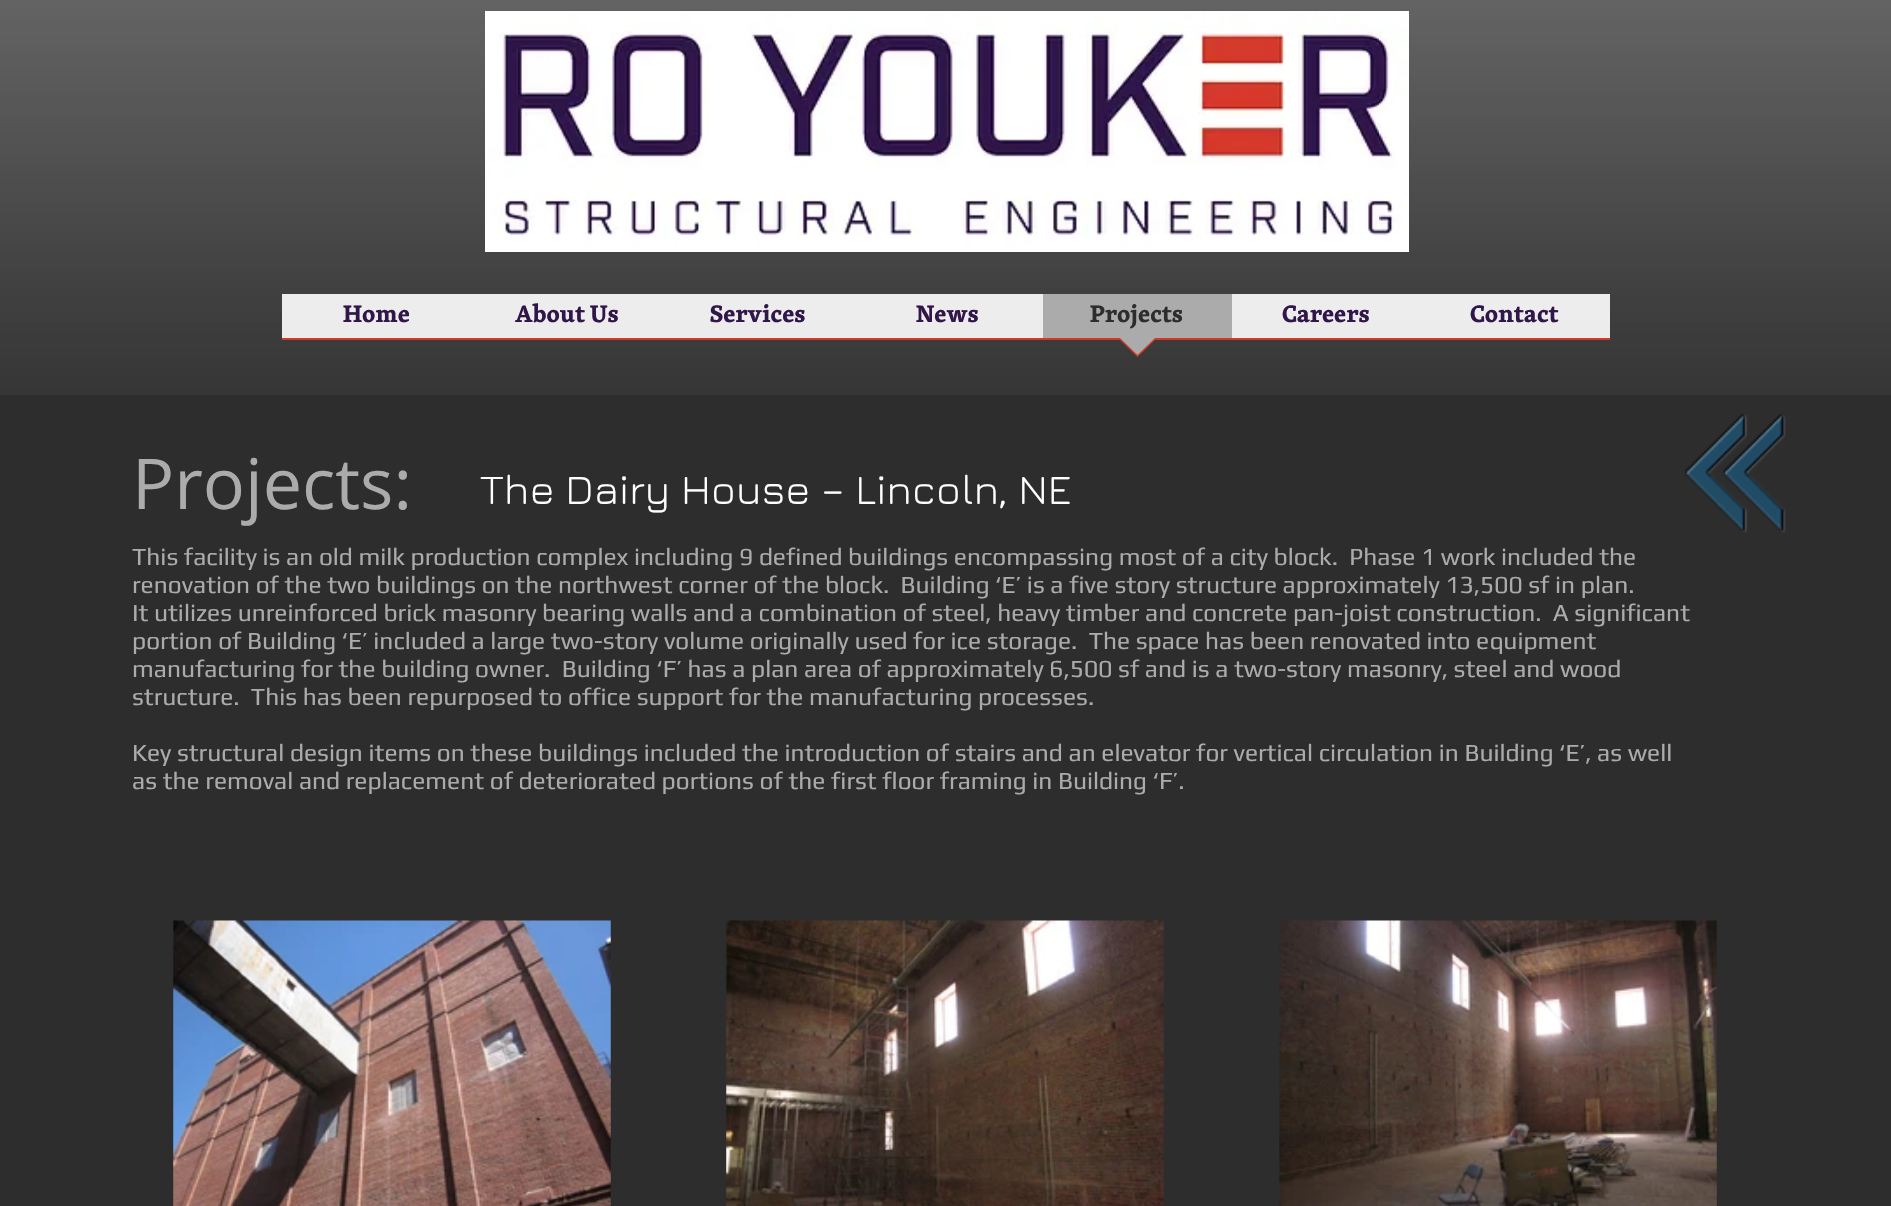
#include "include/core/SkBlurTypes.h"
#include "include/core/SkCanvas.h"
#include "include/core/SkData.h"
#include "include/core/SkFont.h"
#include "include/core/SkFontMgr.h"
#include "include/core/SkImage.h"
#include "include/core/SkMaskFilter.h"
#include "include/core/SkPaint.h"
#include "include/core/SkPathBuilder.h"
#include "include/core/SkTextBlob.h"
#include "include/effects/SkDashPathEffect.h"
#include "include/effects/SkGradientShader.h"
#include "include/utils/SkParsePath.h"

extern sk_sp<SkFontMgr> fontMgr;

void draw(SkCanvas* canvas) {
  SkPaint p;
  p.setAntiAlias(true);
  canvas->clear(SkColorSetRGB(45, 45, 45));
  canvas->drawImageRect(SkImages::DeferredFromEncodedData(SkData::MakeFromFileName("images/1.png")), SkRect::MakeLTRB(0, 0, 1891, 395), SkSamplingOptions());
  canvas->drawImageRect(SkImages::DeferredFromEncodedData(SkData::MakeFromFileName("images/2.png")), SkRect::MakeLTRB(485, 11, 1409, 252), SkSamplingOptions());
  p.setColor(SkColorSetARGB(230, 255, 255, 255));
  canvas->drawRect(SkRect::MakeLTRB(282, 294, 1610, 338), p);
  p.setColor(SkColorSetRGB(212, 56, 43));
  canvas->drawRect(SkRect::MakeLTRB(282, 338, 1610, 340), p);
  p.setColor(SkColorSetRGB(171, 171, 171));
  canvas->drawRect(SkRect::MakeLTRB(1043, 294, 1232, 338), p);
  p.setColor(SkColorSetRGB(212, 56, 43));
  canvas->drawPath(SkPathBuilder().moveTo(1118, 338).lineTo(1157, 338).lineTo(1137.5f, 357).close().detach(), p);
  p.setColor(SkColorSetRGB(171, 171, 171));
  canvas->drawPath(SkPathBuilder().moveTo(1120, 338).lineTo(1155, 338).lineTo(1137.5f, 355).close().detach(), p);
  canvas->drawImageRect(SkImages::DeferredFromEncodedData(SkData::MakeFromFileName("images/3.png")), SkRect::MakeLTRB(1684, 413, 1786, 533), SkSamplingOptions());
  canvas->drawImageRect(SkImages::DeferredFromEncodedData(SkData::MakeFromFileName("images/4.png")), SkRect::MakeLTRB(173, 920, 611, 1206), SkSamplingOptions());
  canvas->drawImageRect(SkImages::DeferredFromEncodedData(SkData::MakeFromFileName("images/5.png")), SkRect::MakeLTRB(726, 920, 1164, 1206), SkSamplingOptions());
  canvas->drawImageRect(SkImages::DeferredFromEncodedData(SkData::MakeFromFileName("images/6.png")), SkRect::MakeLTRB(1279, 920, 1717, 1206), SkSamplingOptions());
  SkFont font1(fontMgr->matchFamilyStyle("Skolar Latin", SkFontStyle::Bold()), 24.5f);
  font1.setSubpixel(true);
  p.setColor(SkColorSetRGB(48, 22, 73));
  canvas->drawString("Home", 343, 322, font1, p);
  canvas->drawString("About Us", 515, 322, font1, p);
  canvas->drawString("Services", 710, 322, font1, p);
  canvas->drawString("News", 916, 322, font1, p);
  p.setColor(SkColorSetRGB(45, 45, 45));
  canvas->drawString("Projects", 1090, 322, font1, p);
  p.setColor(SkColorSetRGB(48, 22, 73));
  canvas->drawString("Careers", 1282, 322, font1, p);
  canvas->drawString("Contact", 1470, 322, font1, p);
  SkFont font2(fontMgr->matchFamilyStyle("Open Sans", SkFontStyle::Normal()), 70);
  font2.setSubpixel(true);
  p.setColor(SkColorSetRGB(171, 171, 171));
  canvas->drawString("Projects:", 132, 509, font2, p);
  SkFont font3(fontMgr->matchFamilyStyle("Jura", SkFontStyle::Normal()), 42);
  font3.setSubpixel(true);
  p.setColor(SK_ColorWHITE);
  canvas->drawString("The Dairy House – Lincoln, NE", 480, 504, font3, p);
  SkFont font4(fontMgr->matchFamilyStyle("Play", SkFontStyle::Normal()), 24.5f);
  font4.setSubpixel(true);
  p.setColor(SkColorSetRGB(171, 171, 171));
  canvas->drawString("This facility is an old milk production complex including 9 defined buildings encompassing most of a city block.  Phase 1 work included the", 132, 565, font4, p);
  canvas->drawString("renovation of the two buildings on the northwest corner of the block.  Building ‘E’ is a five story structure approximately 13,500 sf in plan.", 132, 593, font4, p);
  canvas->drawString("It utilizes unreinforced brick masonry bearing walls and a combination of steel, heavy timber and concrete pan-joist construction.  A significant", 132, 621, font4, p);
  canvas->drawString("portion of Building ‘E’ included a large two-story volume originally used for ice storage.  The space has been renovated into equipment", 132, 649, font4, p);
  canvas->drawString("manufacturing for the building owner.  Building ‘F’ has a plan area of approximately 6,500 sf and is a two-story masonry, steel and wood", 132, 677, font4, p);
  canvas->drawString("structure.  This has been repurposed to office support for the manufacturing processes.", 132, 705, font4, p);
  canvas->drawString("Key structural design items on these buildings included the introduction of stairs and an elevator for vertical circulation in Building ‘E’, as well", 132, 761, font4, p);
  canvas->drawString("as the removal and replacement of deteriorated portions of the first floor framing in Building ‘F’.", 132, 789, font4, p);
}
